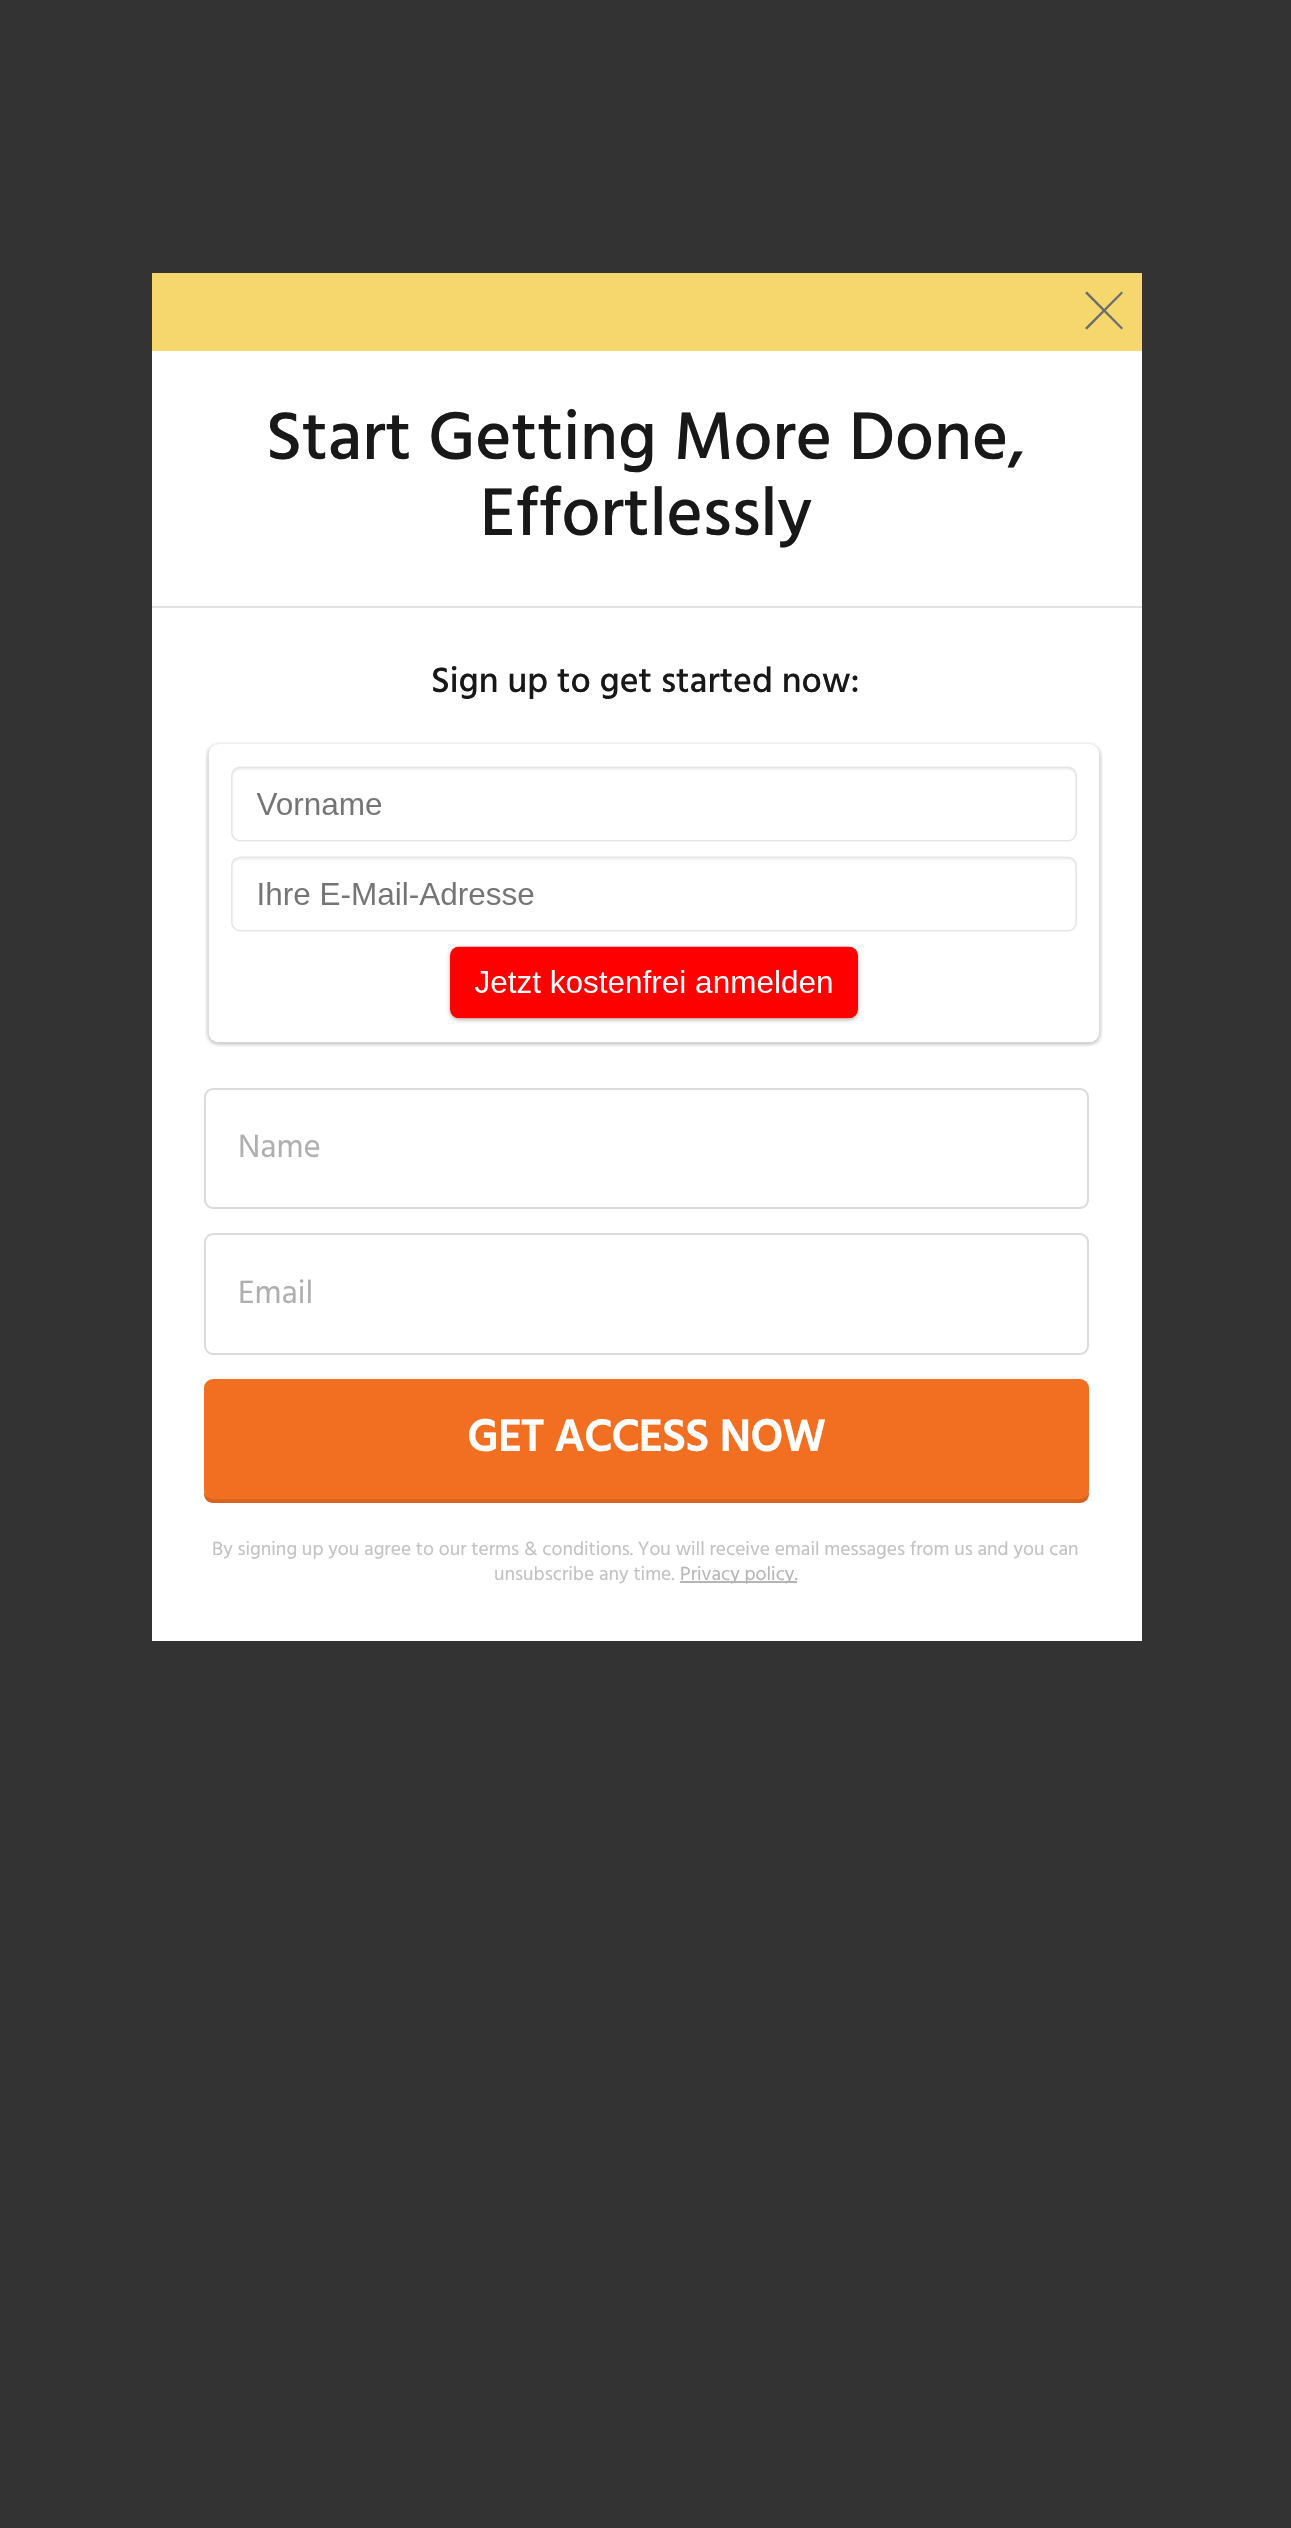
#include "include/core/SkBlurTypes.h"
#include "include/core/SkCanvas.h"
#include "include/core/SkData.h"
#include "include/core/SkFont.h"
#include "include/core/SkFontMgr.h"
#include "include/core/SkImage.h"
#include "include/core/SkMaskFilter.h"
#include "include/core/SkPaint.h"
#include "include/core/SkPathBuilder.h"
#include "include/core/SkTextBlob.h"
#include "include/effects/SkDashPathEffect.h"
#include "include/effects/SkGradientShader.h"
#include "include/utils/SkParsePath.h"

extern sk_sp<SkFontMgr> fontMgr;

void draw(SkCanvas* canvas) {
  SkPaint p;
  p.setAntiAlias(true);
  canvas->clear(SkColorSetRGB(51, 51, 51));
  p.setColor(SK_ColorWHITE);
  canvas->drawRect(SkRect::MakeLTRB(152, 351, 1142, 1641), p);
  p.setColor(SkColorSetRGB(245, 215, 110));
  canvas->drawRect(SkRect::MakeLTRB(152, 273, 1142, 351), p);
  p.setColor(SkColorSetRGB(106, 107, 108));
  canvas->drawPath(SkPathBuilder().moveTo(1085, 293).lineTo(1087, 291.5f).lineTo(1123, 328).lineTo(1121.5f, 329.5f).close().detach(), p);
  canvas->drawPath(SkPathBuilder().moveTo(1121.5f, 291.5f).lineTo(1123, 293).lineTo(1087, 329.5f).lineTo(1085, 328).close().detach(), p);
  p.setColor(SkColorSetRGB(226, 226, 226));
  canvas->drawRect(SkRect::MakeLTRB(152, 606, 1142, 608), p);
  canvas->drawImageRect(SkImages::DeferredFromEncodedData(SkData::MakeFromFileName("images/1.png")), SkRect::MakeLTRB(205, 742, 1103, 1047), SkSamplingOptions());
  p.setStyle(SkPaint::kStroke_Style);
  p.setStrokeWidth(2);
  p.setColor(SkColorSetRGB(219, 219, 219));
  canvas->drawRoundRect(SkRect::MakeLTRB(205, 1089, 1088, 1208), 8, 8, p);
  canvas->drawRoundRect(SkRect::MakeLTRB(205, 1234, 1088, 1354), 8, 8, p);
  p.setStyle(SkPaint::kFill_Style);
  p.setColor(SkColorSetRGB(215, 99, 30));
  canvas->drawPath(SkPathBuilder().moveTo(204, 1490).lineTo(204, 1494).cubicTo(204, 1499, 208, 1503, 213, 1503).lineTo(1080, 1503).cubicTo(1085, 1503, 1089, 1499, 1089, 1494).lineTo(1089, 1490).cubicTo(1089, 1494, 1085, 1498, 1080, 1498).lineTo(213, 1498).cubicTo(208, 1498, 204, 1494, 204, 1490).close().detach(), p);
  p.setColor(SkColorSetRGB(242, 111, 33));
  canvas->drawRoundRect(SkRect::MakeLTRB(204, 1379, 1089, 1499), 9, 9, p);
  p.setColor(SkColorSetRGB(181, 181, 181));
  canvas->drawRect(SkRect::MakeLTRB(680, 1581, 797, 1583), p);
  SkFont font1(fontMgr->matchFamilyStyle("Hind", SkFontStyle(500, SkFontStyle::kNormal_Width, SkFontStyle::kUpright_Slant)), 69);
  font1.setSubpixel(true);
  p.setColor(SkColorSetRGB(25, 24, 24));
  canvas->drawString("Start Getting More Done,", 266, 459, font1, p);
  canvas->drawString("Effortlessly", 480, 535, font1, p);
  SkFont font2(fontMgr->matchFamilyStyle("Hind", SkFontStyle(500, SkFontStyle::kNormal_Width, SkFontStyle::kUpright_Slant)), 36);
  font2.setSubpixel(true);
  canvas->drawString("Sign up to get started now:", 431, 692, font2, p);
  SkFont font3(fontMgr->matchFamilyStyle("Hind", SkFontStyle::Normal()), 33);
  font3.setSubpixel(true);
  p.setColor(SkColorSetRGB(175, 175, 175));
  canvas->drawString("Name", 238, 1157, font3, p);
  canvas->drawString("Email", 238, 1303, font3, p);
  SkFont font4(fontMgr->matchFamilyStyle("Hind", SkFontStyle::Bold()), 45);
  font4.setSubpixel(true);
  p.setColor(SK_ColorWHITE);
  canvas->drawString("GET ACCESS NOW", 467, 1451, font4, p);
  SkFont font5(fontMgr->matchFamilyStyle("Hind", SkFontStyle::Normal()), 19.5f);
  font5.setSubpixel(true);
  p.setColor(SkColorSetRGB(194, 194, 194));
  canvas->drawString("By signing up you agree to our terms & conditions. You will receive email messages from us and you can", 212, 1555, font5, p);
  canvas->drawString("unsubscribe any time.", 494, 1580, font5, p);
  p.setColor(SkColorSetRGB(181, 181, 181));
  canvas->drawString("Privacy policy.", 680, 1580, font5, p);
}
